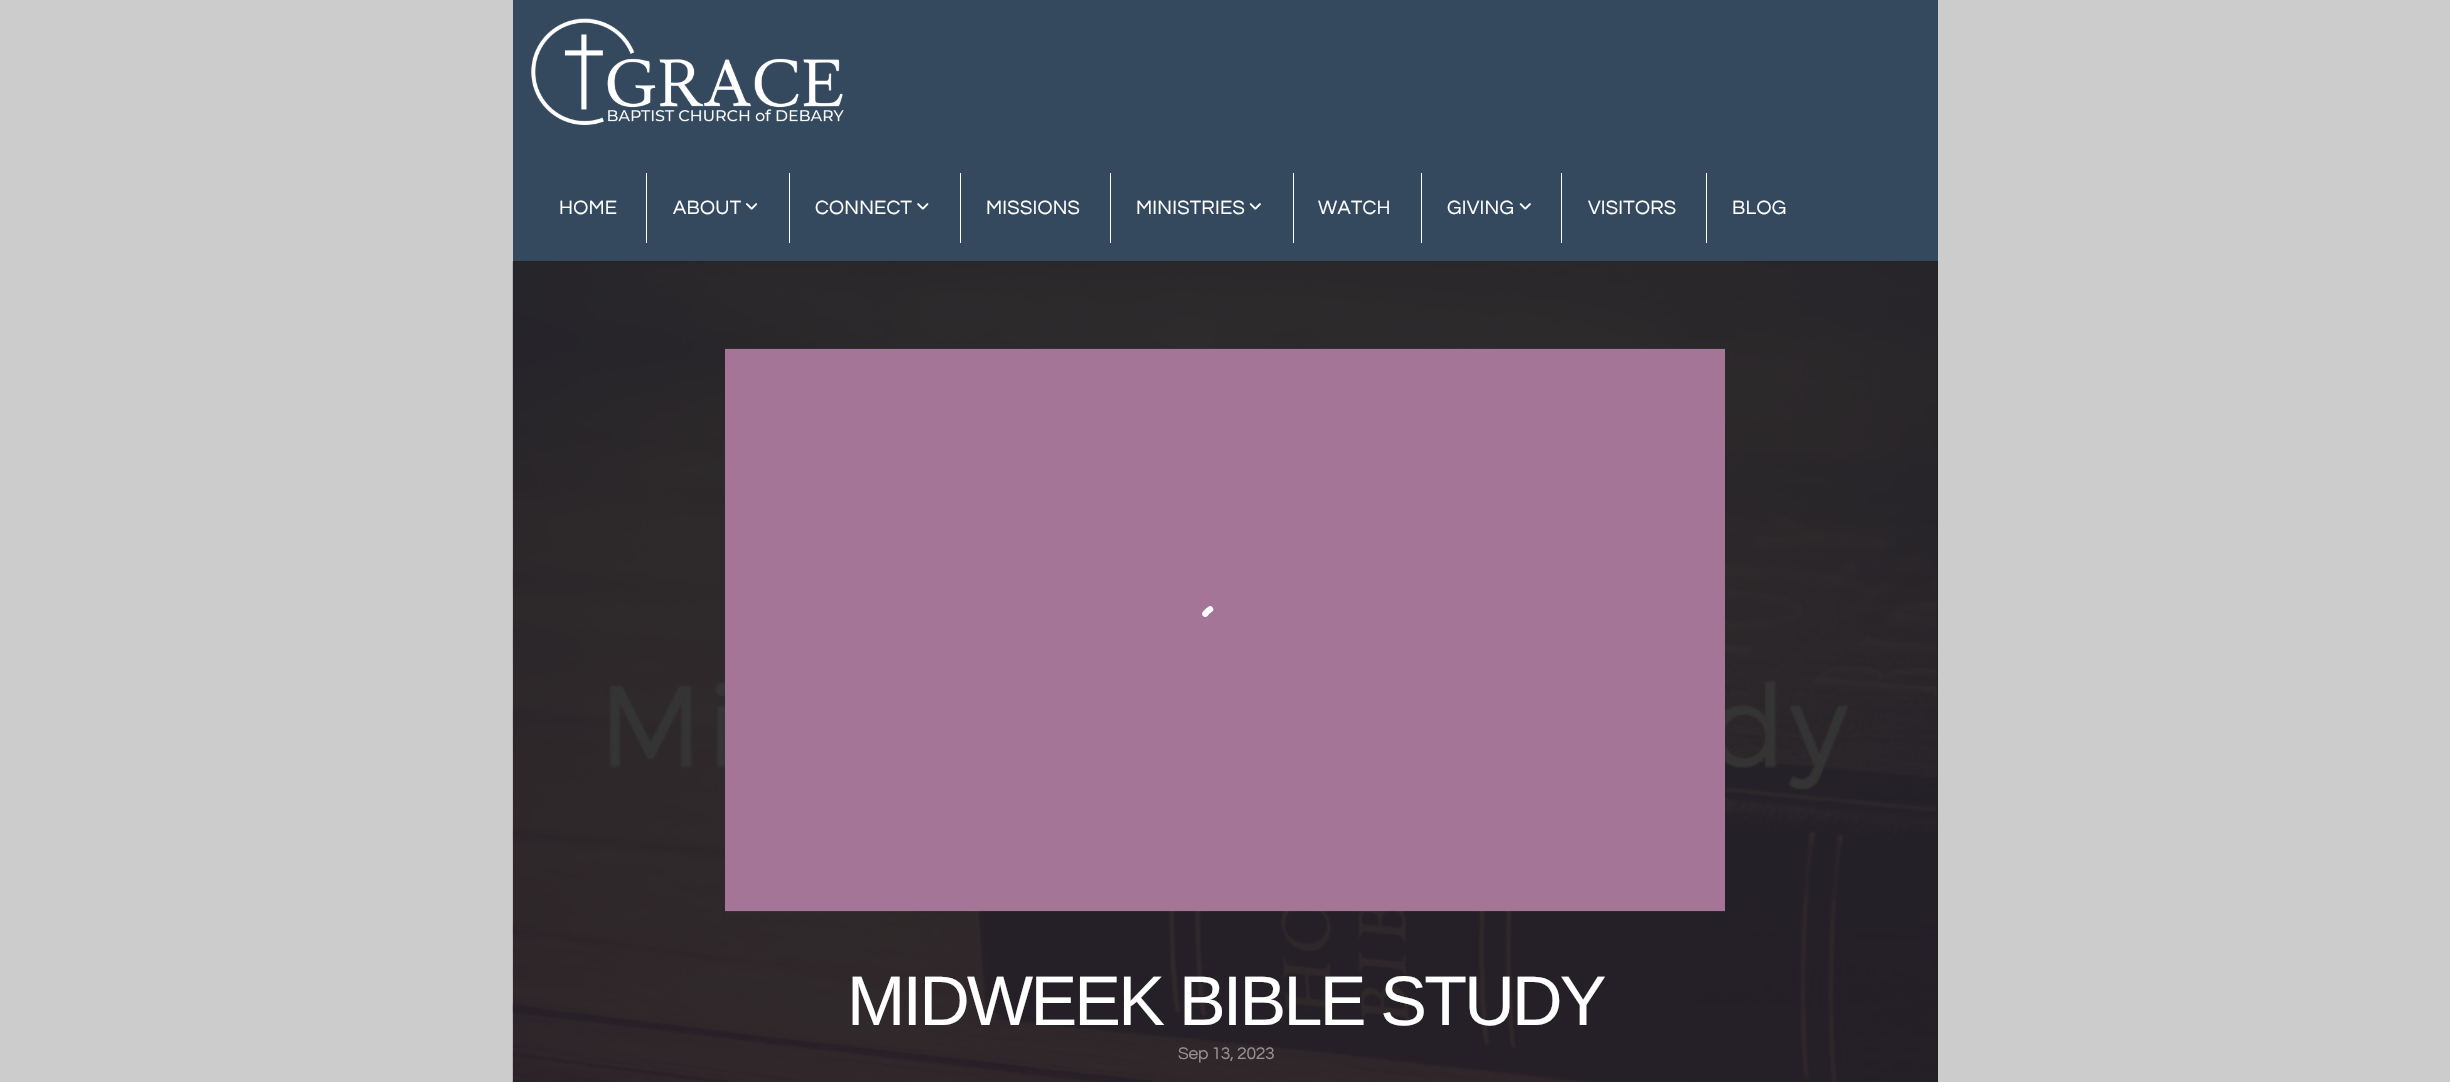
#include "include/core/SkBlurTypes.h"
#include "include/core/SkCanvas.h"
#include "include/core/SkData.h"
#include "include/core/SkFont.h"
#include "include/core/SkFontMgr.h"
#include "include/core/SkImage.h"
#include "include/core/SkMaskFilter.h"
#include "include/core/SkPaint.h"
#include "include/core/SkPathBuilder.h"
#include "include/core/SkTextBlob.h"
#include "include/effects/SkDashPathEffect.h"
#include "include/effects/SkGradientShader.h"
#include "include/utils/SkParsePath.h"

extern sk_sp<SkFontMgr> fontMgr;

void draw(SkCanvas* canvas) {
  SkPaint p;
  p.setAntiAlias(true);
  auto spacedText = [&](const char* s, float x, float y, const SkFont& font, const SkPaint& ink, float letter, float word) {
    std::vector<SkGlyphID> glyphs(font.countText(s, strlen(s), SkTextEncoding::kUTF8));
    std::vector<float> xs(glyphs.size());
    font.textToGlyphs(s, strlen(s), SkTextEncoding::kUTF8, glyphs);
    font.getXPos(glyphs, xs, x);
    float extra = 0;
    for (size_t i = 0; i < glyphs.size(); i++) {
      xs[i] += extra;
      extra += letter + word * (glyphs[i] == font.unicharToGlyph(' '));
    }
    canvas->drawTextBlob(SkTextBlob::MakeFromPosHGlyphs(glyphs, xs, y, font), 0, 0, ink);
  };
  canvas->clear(SkColorSetRGB(204, 204, 204));
  p.setColor(SkColorSetRGB(52, 73, 94));
  canvas->drawRect(SkRect::MakeLTRB(513, 0, 1938, 261), p);
  canvas->drawImageRect(SkImages::DeferredFromEncodedData(SkData::MakeFromFileName("images/1.png")), SkRect::MakeLTRB(531, 18, 844, 125), SkSamplingOptions());
  p.setColor(SK_ColorWHITE);
  canvas->drawRect(SkRect::MakeLTRB(646, 173, 647, 243), p);
  canvas->drawImageRect(SkImages::DeferredFromEncodedData(SkData::MakeFromFileName("images/2.png")), SkRect::MakeLTRB(746, 203, 758, 210), SkSamplingOptions());
  canvas->drawRect(SkRect::MakeLTRB(789, 173, 790, 243), p);
  canvas->drawImageRect(SkImages::DeferredFromEncodedData(SkData::MakeFromFileName("images/3.png")), SkRect::MakeLTRB(917, 203, 929, 210), SkSamplingOptions());
  canvas->drawRect(SkRect::MakeLTRB(960, 173, 961, 243), p);
  canvas->drawRect(SkRect::MakeLTRB(1110, 173, 1111, 243), p);
  canvas->drawImageRect(SkImages::DeferredFromEncodedData(SkData::MakeFromFileName("images/4.png")), SkRect::MakeLTRB(1249, 203, 1261, 210), SkSamplingOptions());
  canvas->drawRect(SkRect::MakeLTRB(1293, 173, 1294, 243), p);
  canvas->drawRect(SkRect::MakeLTRB(1421, 173, 1422, 243), p);
  canvas->drawImageRect(SkImages::DeferredFromEncodedData(SkData::MakeFromFileName("images/4.png")), SkRect::MakeLTRB(1519, 203, 1531, 210), SkSamplingOptions());
  canvas->drawRect(SkRect::MakeLTRB(1561, 173, 1562, 243), p);
  canvas->drawRect(SkRect::MakeLTRB(1706, 173, 1707, 243), p);
  p.setColor(SkColorSetRGB(30, 30, 30));
  canvas->drawRect(SkRect::MakeLTRB(513, 261, 1938, 1082), p);
  canvas->drawImageRect(SkImages::DeferredFromEncodedData(SkData::MakeFromFileName("images/5.png")), SkRect::MakeLTRB(512, 261, 1938, 1082), SkSamplingOptions());
  canvas->drawImageRect(SkImages::DeferredFromEncodedData(SkData::MakeFromFileName("images/6.png")), SkRect::MakeLTRB(725, 348, 1725, 912), SkSamplingOptions());
  SkFont font1(fontMgr->matchFamilyStyle("Questrial", SkFontStyle::Normal()), 20);
  font1.setSubpixel(true);
  p.setColor(SK_ColorWHITE);
  spacedText("HOME", 559, 214, font1, p, 0.25f, 0);
  spacedText("ABOUT", 673, 214, font1, p, 0.25f, 0);
  spacedText("CONNECT", 815, 214, font1, p, 0.25f, 0);
  spacedText("MISSIONS", 986, 214, font1, p, 0.25f, 0);
  spacedText("MINISTRIES", 1136, 214, font1, p, 0.25f, 0);
  spacedText("WATCH", 1318, 214, font1, p, 0.25f, 0);
  spacedText("GIVING", 1447, 214, font1, p, 0.25f, 0);
  spacedText("VISITORS", 1588, 214, font1, p, 0.25f, 0);
  spacedText("BLOG", 1732, 214, font1, p, 0.25f, 0);
  SkFont font2(fontMgr->matchFamilyStyle("Liberation Sans", SkFontStyle::Normal()), 70);
  font2.setSubpixel(true);
  spacedText("MIDWEEK BIBLE STUDY", 847, 1025, font2, p, -2.75f, 0);
  SkFont font3(fontMgr->matchFamilyStyle("Questrial", SkFontStyle::Normal()), 17.5f);
  font3.setSubpixel(true);
  p.setColor(SkColorSetRGB(151, 147, 149));
  spacedText("Sep 13, 2023", 1178, 1059, font3, p, -0.3f, 0);
}
